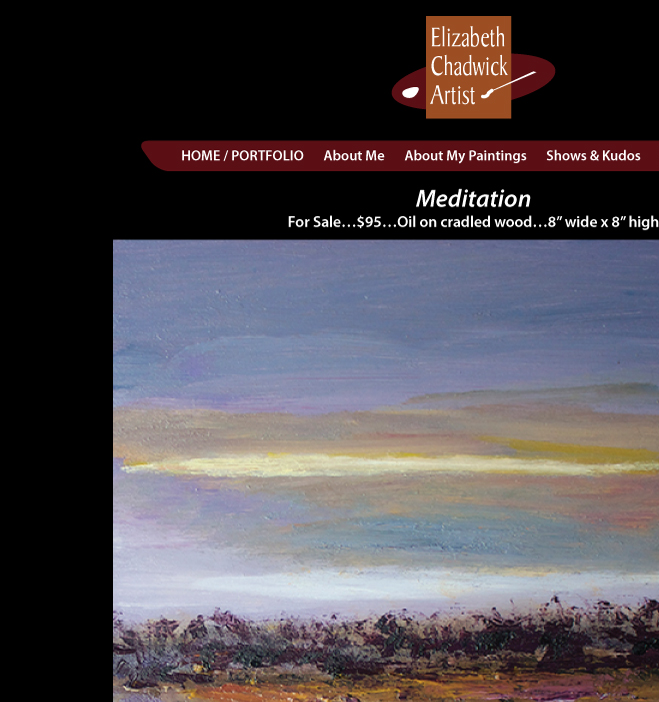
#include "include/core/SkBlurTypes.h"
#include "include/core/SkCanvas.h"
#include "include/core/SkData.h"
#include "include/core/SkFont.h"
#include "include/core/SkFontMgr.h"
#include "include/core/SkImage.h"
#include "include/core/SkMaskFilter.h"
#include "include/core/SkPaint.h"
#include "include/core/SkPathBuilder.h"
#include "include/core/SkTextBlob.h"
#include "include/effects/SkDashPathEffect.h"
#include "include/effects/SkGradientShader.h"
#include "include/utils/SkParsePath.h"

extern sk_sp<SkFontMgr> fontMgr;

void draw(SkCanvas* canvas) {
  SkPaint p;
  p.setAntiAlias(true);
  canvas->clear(SK_ColorBLACK);
  canvas->drawImageRect(SkImages::DeferredFromEncodedData(SkData::MakeFromFileName("images/1.png")), SkRect::MakeLTRB(112, 16, 659, 702), SkSamplingOptions());
}
